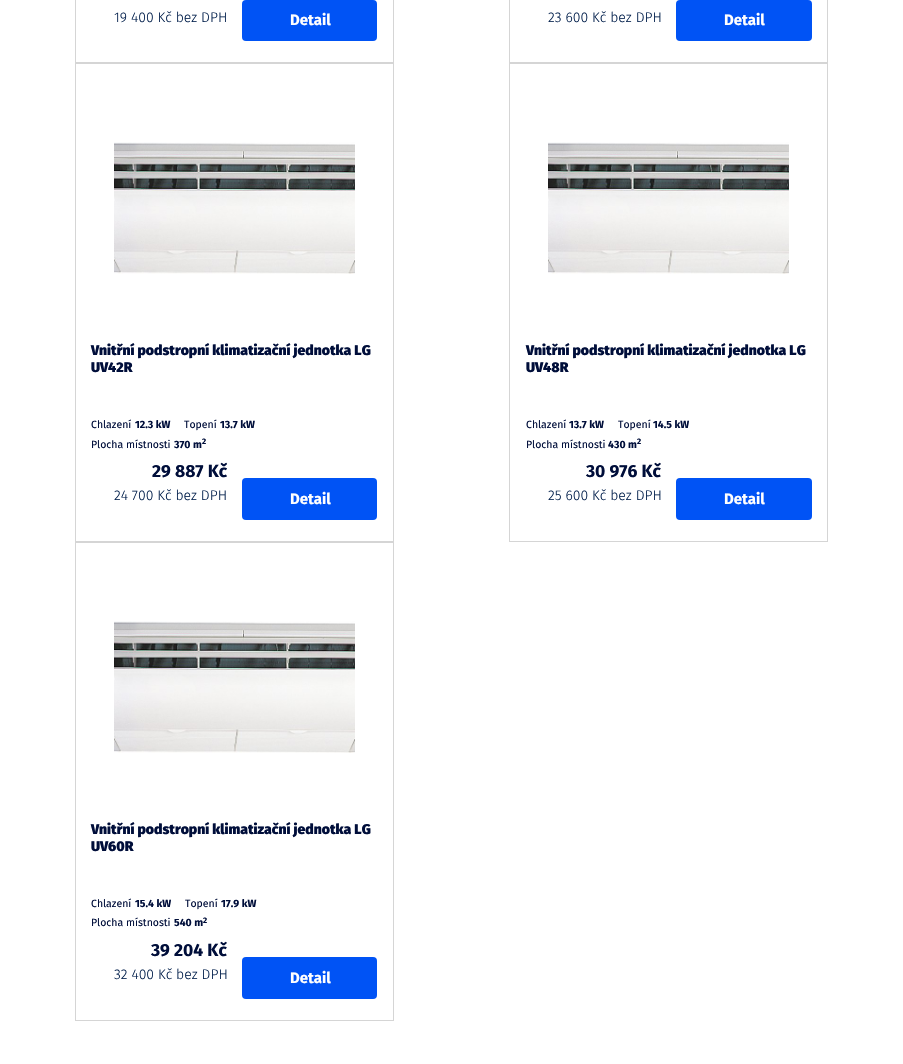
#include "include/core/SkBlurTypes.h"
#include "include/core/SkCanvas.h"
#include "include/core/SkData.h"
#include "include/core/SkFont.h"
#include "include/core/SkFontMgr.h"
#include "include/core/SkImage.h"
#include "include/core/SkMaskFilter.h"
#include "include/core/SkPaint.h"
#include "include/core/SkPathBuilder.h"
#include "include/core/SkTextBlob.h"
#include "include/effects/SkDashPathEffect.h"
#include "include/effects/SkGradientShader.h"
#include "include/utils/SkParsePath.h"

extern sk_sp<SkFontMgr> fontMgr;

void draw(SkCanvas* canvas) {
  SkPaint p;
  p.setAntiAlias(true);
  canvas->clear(SK_ColorWHITE);
  p.setStyle(SkPaint::kStroke_Style);
  p.setStrokeWidth(1);
  p.setColor(SkColorSetRGB(213, 213, 213));
  canvas->drawRect(SkRect::MakeLTRB(75.5f, -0.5f, 393.5f, 62.5f), p);
  p.setStyle(SkPaint::kFill_Style);
  p.setColor(SkColorSetRGB(0, 83, 245));
  canvas->drawRoundRect(SkRect::MakeLTRB(242, 0, 377, 41), 4, 4, p);
  p.setStyle(SkPaint::kStroke_Style);
  p.setColor(SkColorSetRGB(213, 213, 213));
  canvas->drawRect(SkRect::MakeLTRB(509.5f, -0.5f, 827.5f, 62.5f), p);
  p.setStyle(SkPaint::kFill_Style);
  p.setColor(SkColorSetRGB(0, 83, 245));
  canvas->drawRoundRect(SkRect::MakeLTRB(676, 0, 812, 41), 4, 4, p);
  p.setStyle(SkPaint::kStroke_Style);
  p.setColor(SkColorSetRGB(213, 213, 213));
  canvas->drawRect(SkRect::MakeLTRB(75.5f, 63.5f, 393.5f, 541.5f), p);
  canvas->drawImageRect(SkImages::DeferredFromEncodedData(SkData::MakeFromFileName("images/1.png")), SkRect::MakeLTRB(114, 142, 355, 274), SkSamplingOptions());
  p.setStyle(SkPaint::kFill_Style);
  p.setColor(SkColorSetRGB(0, 83, 245));
  canvas->drawRoundRect(SkRect::MakeLTRB(242, 478, 377, 520), 4, 4, p);
  p.setStyle(SkPaint::kStroke_Style);
  p.setColor(SkColorSetRGB(213, 213, 213));
  canvas->drawRect(SkRect::MakeLTRB(509.5f, 63.5f, 827.5f, 541.5f), p);
  canvas->drawImageRect(SkImages::DeferredFromEncodedData(SkData::MakeFromFileName("images/1.png")), SkRect::MakeLTRB(548, 142, 789, 274), SkSamplingOptions());
  p.setStyle(SkPaint::kFill_Style);
  p.setColor(SkColorSetRGB(0, 83, 245));
  canvas->drawRoundRect(SkRect::MakeLTRB(676, 478, 812, 520), 4, 4, p);
  p.setStyle(SkPaint::kStroke_Style);
  p.setColor(SkColorSetRGB(213, 213, 213));
  canvas->drawRect(SkRect::MakeLTRB(75.5f, 542.5f, 393.5f, 1020.5f), p);
  canvas->drawImageRect(SkImages::DeferredFromEncodedData(SkData::MakeFromFileName("images/2.png")), SkRect::MakeLTRB(114, 621, 355, 753), SkSamplingOptions());
  p.setStyle(SkPaint::kFill_Style);
  p.setColor(SkColorSetRGB(0, 83, 245));
  canvas->drawRoundRect(SkRect::MakeLTRB(242, 957, 377, 999), 4, 4, p);
  SkFont font1(fontMgr->matchFamilyStyle("Fira Sans", SkFontStyle(300, SkFontStyle::kNormal_Width, SkFontStyle::kUpright_Slant)), 14);
  font1.setSubpixel(true);
  p.setColor(SkColorSetRGB(4, 33, 77));
  canvas->drawString("19 400 Kč bez DPH", 114, 22, font1, p);
  SkFont font2(fontMgr->matchFamilyStyle("Fira Sans", SkFontStyle::Bold()), 15);
  font2.setSubpixel(true);
  p.setColor(SK_ColorWHITE);
  canvas->drawString("Detail", 290, 25, font2, p);
  p.setColor(SkColorSetRGB(4, 33, 77));
  canvas->drawString("23 600 Kč bez DPH", 548, 22, font1, p);
  p.setColor(SK_ColorWHITE);
  canvas->drawString("Detail", 724, 25, font2, p);
  SkFont font3(fontMgr->matchFamilyStyle("Fira Sans", SkFontStyle(900, SkFontStyle::kNormal_Width, SkFontStyle::kUpright_Slant)), 14);
  font3.setSubpixel(true);
  p.setColor(SkColorSetRGB(0, 14, 58));
  canvas->drawString("Vnitřní podstropní klimatizační jednotka LG", 91, 355, font3, p);
  canvas->drawString("UV42R", 91, 372, font3, p);
  SkFont font4(fontMgr->matchFamilyStyle("Fira Sans", SkFontStyle::Normal()), 10.5f);
  font4.setSubpixel(true);
  canvas->drawString("Chlazení", 91, 428, font4, p);
  SkFont font5(fontMgr->matchFamilyStyle("Fira Sans", SkFontStyle::Bold()), 10.5f);
  font5.setSubpixel(true);
  canvas->drawString("12.3 kW", 135, 428, font5, p);
  canvas->drawString("Topení", 184, 428, font4, p);
  canvas->drawString("13.7 kW", 220, 428, font5, p);
  canvas->drawString("Plocha místnosti", 91, 448, font4, p);
  canvas->drawString("370 m", 174, 448, font5, p);
  SkFont font6(fontMgr->matchFamilyStyle("Fira Sans", SkFontStyle::Bold()), 8);
  font6.setSubpixel(true);
  canvas->drawString("2", 202, 444, font6, p);
  SkFont font7(fontMgr->matchFamilyStyle("Fira Sans", SkFontStyle::Bold()), 17.5f);
  font7.setSubpixel(true);
  canvas->drawString("29 887 Kč", 152, 477, font7, p);
  p.setColor(SkColorSetRGB(4, 33, 77));
  canvas->drawString("24 700 Kč bez DPH", 114, 500, font1, p);
  p.setColor(SK_ColorWHITE);
  canvas->drawString("Detail", 290, 504, font2, p);
  p.setColor(SkColorSetRGB(0, 14, 58));
  canvas->drawString("Vnitřní podstropní klimatizační jednotka LG", 526, 355, font3, p);
  canvas->drawString("UV48R", 526, 372, font3, p);
  canvas->drawString("Chlazení", 526, 428, font4, p);
  canvas->drawString("13.7 kW", 569, 428, font5, p);
  canvas->drawString("Topení", 618, 428, font4, p);
  canvas->drawString("14.5 kW", 653, 428, font5, p);
  canvas->drawString("Plocha místnosti", 526, 448, font4, p);
  canvas->drawString("430 m", 608, 448, font5, p);
  canvas->drawString("2", 637, 444, font6, p);
  canvas->drawString("30 976 Kč", 586, 477, font7, p);
  p.setColor(SkColorSetRGB(4, 33, 77));
  canvas->drawString("25 600 Kč bez DPH", 548, 500, font1, p);
  p.setColor(SK_ColorWHITE);
  canvas->drawString("Detail", 724, 504, font2, p);
  p.setColor(SkColorSetRGB(0, 14, 58));
  canvas->drawString("Vnitřní podstropní klimatizační jednotka LG", 91, 834, font3, p);
  canvas->drawString("UV60R", 91, 851, font3, p);
  canvas->drawString("Chlazení", 91, 907, font4, p);
  canvas->drawString("15.4 kW", 135, 907, font5, p);
  canvas->drawString("Topení", 185, 907, font4, p);
  canvas->drawString("17.9 kW", 221, 907, font5, p);
  canvas->drawString("Plocha místnosti", 91, 926, font4, p);
  canvas->drawString("540 m", 174, 926, font5, p);
  canvas->drawString("2", 203, 923, font6, p);
  canvas->drawString("39 204 Kč", 151, 956, font7, p);
  p.setColor(SkColorSetRGB(4, 33, 77));
  canvas->drawString("32 400 Kč bez DPH", 114, 979, font1, p);
  p.setColor(SK_ColorWHITE);
  canvas->drawString("Detail", 290, 983, font2, p);
}
